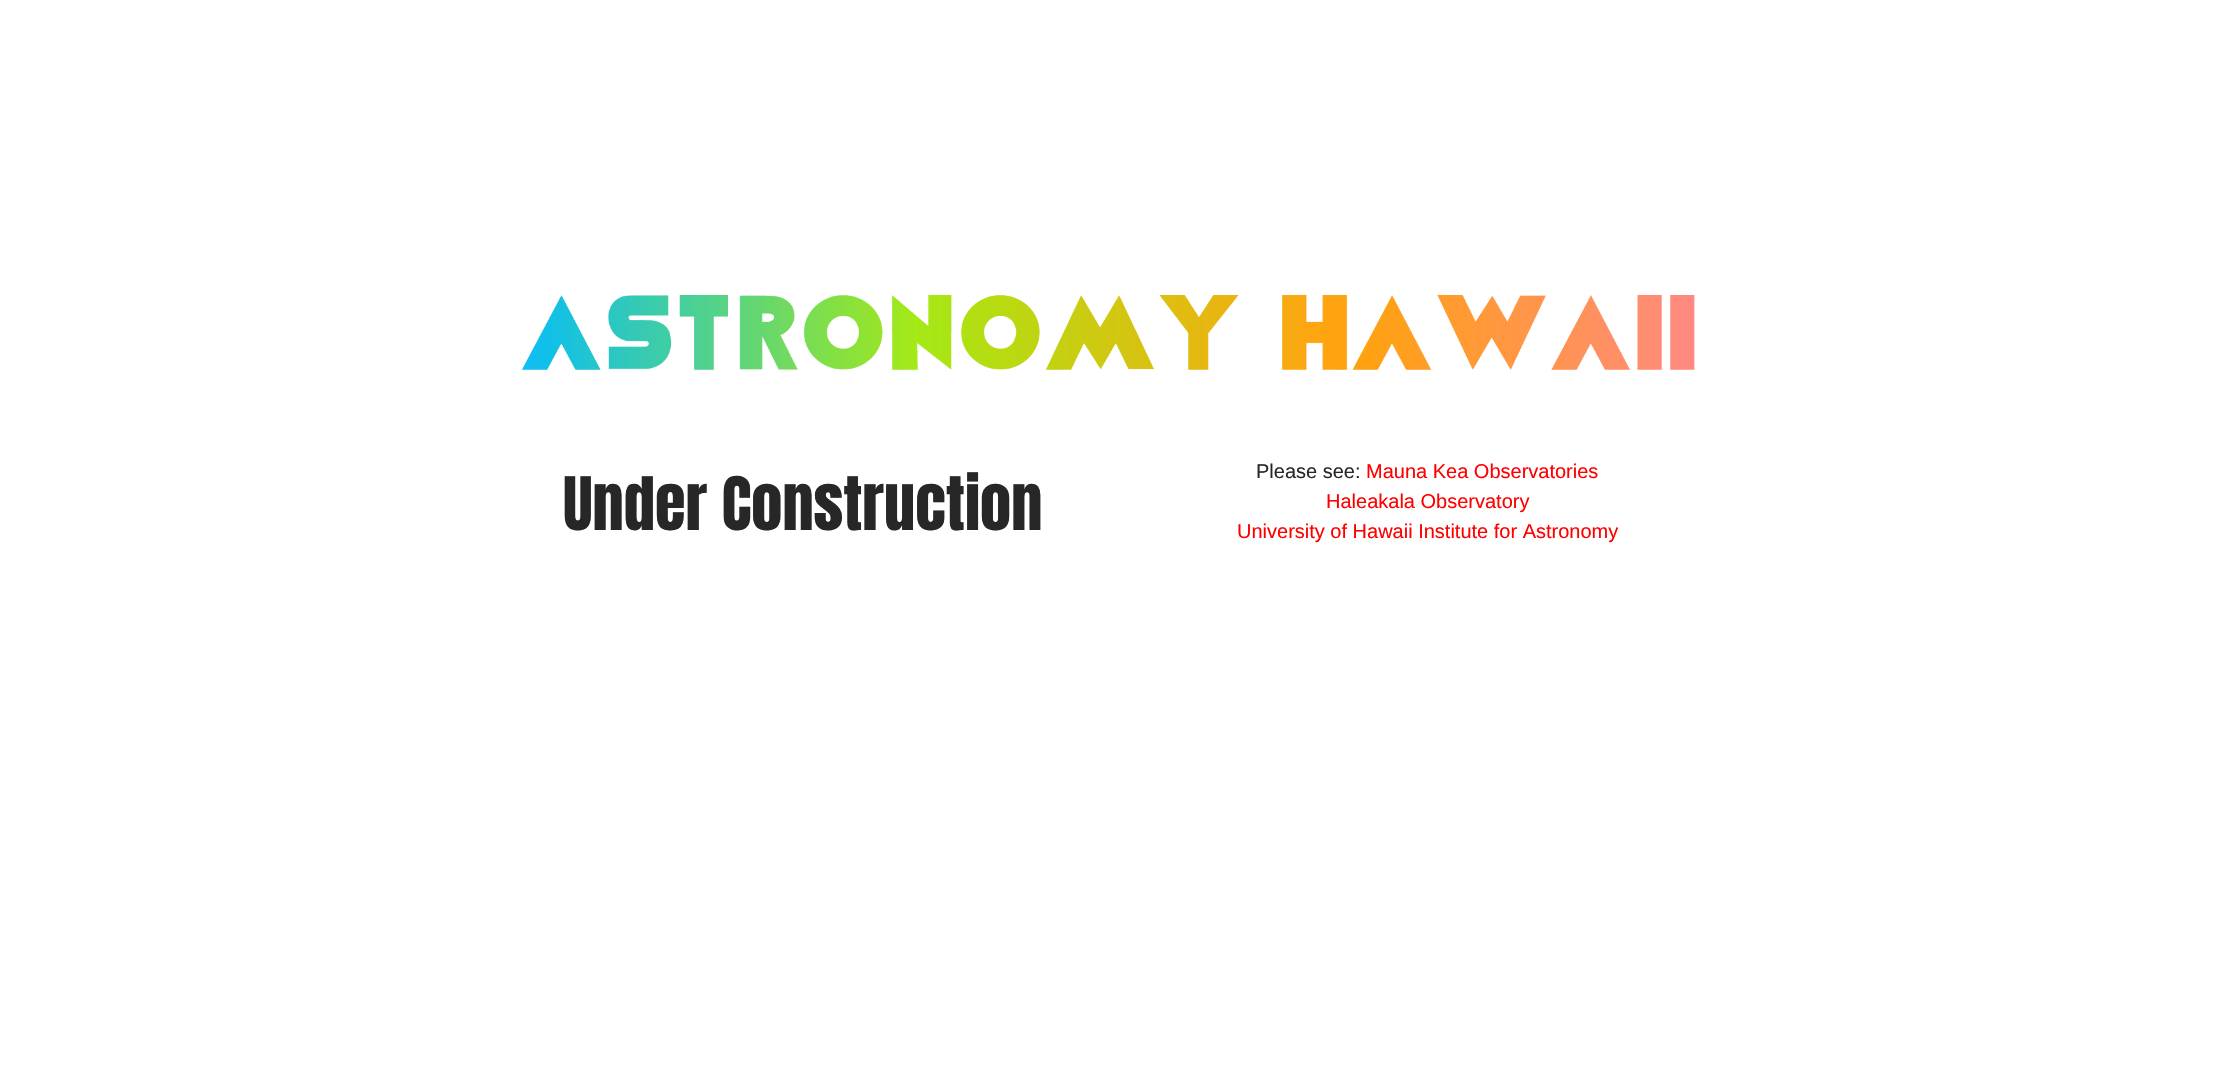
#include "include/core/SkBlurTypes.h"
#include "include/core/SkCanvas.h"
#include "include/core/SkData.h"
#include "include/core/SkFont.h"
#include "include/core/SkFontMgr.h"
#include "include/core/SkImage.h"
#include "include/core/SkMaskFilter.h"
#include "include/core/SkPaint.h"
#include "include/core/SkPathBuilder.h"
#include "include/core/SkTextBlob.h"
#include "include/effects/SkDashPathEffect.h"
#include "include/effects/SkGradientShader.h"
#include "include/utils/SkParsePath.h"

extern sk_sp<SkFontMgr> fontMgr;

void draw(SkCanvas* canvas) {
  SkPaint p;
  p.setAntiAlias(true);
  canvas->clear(SK_ColorWHITE);
  canvas->drawImageRect(SkImages::DeferredFromEncodedData(SkData::MakeFromFileName("images/1.png")), SkRect::MakeLTRB(522, 295, 1695, 370), SkSamplingOptions());
  SkFont font1(fontMgr->matchFamilyStyle("Anton", SkFontStyle::Normal()), 62.5f);
  font1.setSubpixel(true);
  p.setColor(SkColorSetRGB(39, 39, 39));
  canvas->drawString("Under Construction", 563, 530, font1, p);
  SkFont font2(fontMgr->matchFamilyStyle("Liberation Sans", SkFontStyle::Normal()), 20);
  font2.setSubpixel(true);
  canvas->drawString("Please see:", 1256, 478, font2, p);
  p.setColor(SkColorSetRGB(255, 0, 0));
  canvas->drawString("Mauna Kea Observatories", 1366, 478, font2, p);
  canvas->drawString("Haleakala Observatory", 1326, 508, font2, p);
  canvas->drawString("University of Hawaii Institute for Astronomy", 1237, 538, font2, p);
}
